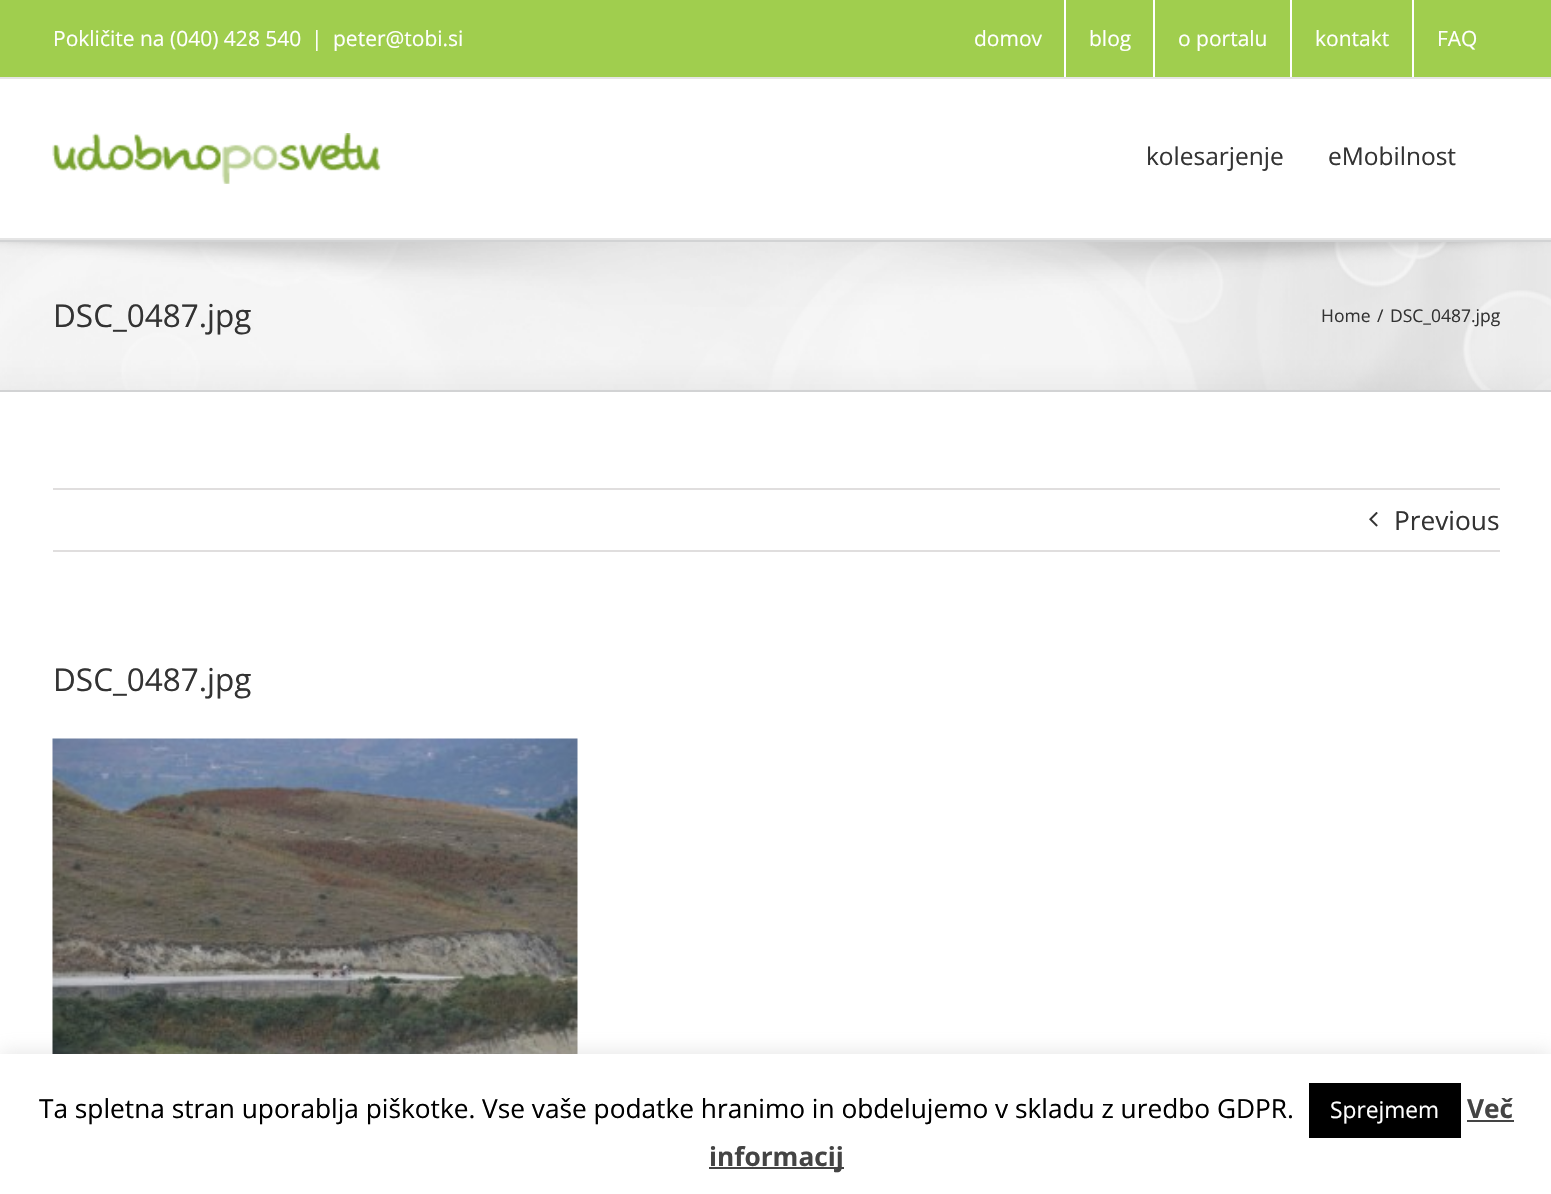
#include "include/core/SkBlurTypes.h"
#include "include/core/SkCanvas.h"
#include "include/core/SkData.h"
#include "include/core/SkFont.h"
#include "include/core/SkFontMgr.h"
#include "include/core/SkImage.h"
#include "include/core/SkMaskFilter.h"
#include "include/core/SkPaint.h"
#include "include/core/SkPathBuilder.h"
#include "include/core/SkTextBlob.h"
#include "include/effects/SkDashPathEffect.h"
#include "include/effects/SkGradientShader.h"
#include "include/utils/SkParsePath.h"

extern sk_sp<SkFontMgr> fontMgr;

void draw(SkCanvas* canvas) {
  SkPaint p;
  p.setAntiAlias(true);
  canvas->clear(SkColorSetRGB(246, 246, 246));
  p.setColor(SkColorSetRGB(160, 206, 78));
  canvas->drawRect(SkRect::MakeLTRB(0, 0, 1551, 77), p);
  p.setColor(SkColorSetRGB(229, 229, 229));
  canvas->drawRect(SkRect::MakeLTRB(0, 77, 1551, 79), p);
  p.setColor(SK_ColorWHITE);
  canvas->drawRect(SkRect::MakeLTRB(1064, 0, 1066, 77), p);
  canvas->drawRect(SkRect::MakeLTRB(1153, 0, 1155, 77), p);
  canvas->drawRect(SkRect::MakeLTRB(1290, 0, 1292, 77), p);
  canvas->drawRect(SkRect::MakeLTRB(1412, 0, 1414, 77), p);
  canvas->drawRect(SkRect::MakeLTRB(0, 79, 1551, 238), p);
  p.setColor(SkColorSetRGB(229, 229, 229));
  canvas->drawRect(SkRect::MakeLTRB(0, 238, 1551, 240), p);
  canvas->drawImageRect(SkImages::DeferredFromEncodedData(SkData::MakeFromFileName("images/1.png")), SkRect::MakeLTRB(52, 133, 381, 184), SkSamplingOptions());
  canvas->drawImageRect(SkImages::DeferredFromEncodedData(SkData::MakeFromFileName("images/2.png")), SkRect::MakeLTRB(0, 242, 1551, 390), SkSamplingOptions());
  p.setColor(SkColorSetRGB(210, 211, 212));
  canvas->drawRect(SkRect::MakeLTRB(0, 240, 1551, 242), p);
  canvas->drawRect(SkRect::MakeLTRB(0, 390, 1551, 392), p);
  p.setColor(SK_ColorWHITE);
  canvas->drawRect(SkRect::MakeLTRB(0, 392, 1551, 1054), p);
  p.setColor(SkColorSetRGB(224, 222, 222));
  canvas->drawRect(SkRect::MakeLTRB(53, 488, 1500, 490), p);
  canvas->drawRect(SkRect::MakeLTRB(53, 550, 1500, 552), p);
  canvas->drawImageRect(SkImages::DeferredFromEncodedData(SkData::MakeFromFileName("images/3.png")), SkRect::MakeLTRB(1369, 512, 1378, 527), SkSamplingOptions());
  canvas->drawImageRect(SkImages::DeferredFromEncodedData(SkData::MakeFromFileName("images/4.png")), SkRect::MakeLTRB(52, 738, 578, 1054), SkSamplingOptions());
  p.setColor(SkColorSetARGB(77, 172, 171, 171));
  p.setMaskFilter(SkMaskFilter::MakeBlur(kNormal_SkBlurStyle, 9));
  canvas->drawRect(SkRect::MakeLTRB(0, 1052, 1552, 1194), p);
  p.setMaskFilter(nullptr);
  p.setColor(SK_ColorWHITE);
  canvas->drawRect(SkRect::MakeLTRB(0, 1054, 1551, 1194), p);
  p.setColor(SK_ColorBLACK);
  canvas->drawRect(SkRect::MakeLTRB(1309, 1083, 1461, 1138), p);
  p.setColor(SkColorSetRGB(68, 68, 68));
  canvas->drawRect(SkRect::MakeLTRB(1467, 1120, 1514, 1122), p);
  canvas->drawRect(SkRect::MakeLTRB(709, 1167, 844, 1169), p);
  SkFont font1(fontMgr->matchFamilyStyle("Open Sans", SkFontStyle::Normal()), 21);
  font1.setSubpixel(true);
  p.setColor(SK_ColorWHITE);
  canvas->drawString("Pokličite na (040) 428 540", 53, 46, font1, p);
  canvas->drawString("|", 311, 46, font1, p);
  canvas->drawString("peter@tobi.si", 333, 46, font1, p);
  canvas->drawString("domov", 974, 46, font1, p);
  canvas->drawString("blog", 1089, 46, font1, p);
  canvas->drawString("o portalu", 1178, 46, font1, p);
  canvas->drawString("kontakt", 1315, 46, font1, p);
  canvas->drawString("FAQ", 1437, 46, font1, p);
  SkFont font2(fontMgr->matchFamilyStyle("Open Sans", SkFontStyle::Normal()), 24.5f);
  font2.setSubpixel(true);
  p.setColor(SkColorSetRGB(51, 51, 51));
  canvas->drawString("kolesarjenje", 1146, 165, font2, p);
  canvas->drawString("eMobilnost", 1328, 165, font2, p);
  SkFont font3(fontMgr->matchFamilyStyle("Open Sans", SkFontStyle::Normal()), 31.5f);
  font3.setSubpixel(true);
  canvas->drawString("DSC_0487.jpg", 53, 327, font3, p);
  SkFont font4(fontMgr->matchFamilyStyle("Open Sans", SkFontStyle::Normal()), 17.5f);
  font4.setSubpixel(true);
  canvas->drawString("Home", 1321, 322, font4, p);
  canvas->drawString("/", 1377, 322, font4, p);
  canvas->drawString("DSC_0487.jpg", 1390, 322, font4, p);
  SkFont font5(fontMgr->matchFamilyStyle("Open Sans", SkFontStyle::Normal()), 26.25f);
  font5.setSubpixel(true);
  canvas->drawString("Previous", 1394, 530, font5, p);
  canvas->drawString("DSC_0487.jpg", 53, 691, font3, p);
  p.setColor(SK_ColorBLACK);
  canvas->drawString("Ta spletna stran uporablja piškotke. Vse vaše podatke hranimo in obdelujemo v skladu z uredbo GDPR.", 39, 1118, font5, p);
  SkFont font6(fontMgr->matchFamilyStyle("Open Sans", SkFontStyle::Normal()), 22.75f);
  font6.setSubpixel(true);
  p.setColor(SK_ColorWHITE);
  canvas->drawString("Sprejmem", 1330, 1118, font6, p);
  SkFont font7(fontMgr->matchFamilyStyle("Open Sans", SkFontStyle::Bold()), 26.25f);
  font7.setSubpixel(true);
  p.setColor(SkColorSetRGB(68, 68, 68));
  canvas->drawString("Več", 1467, 1118, font7, p);
  canvas->drawString("informacij", 709, 1166, font7, p);
}
